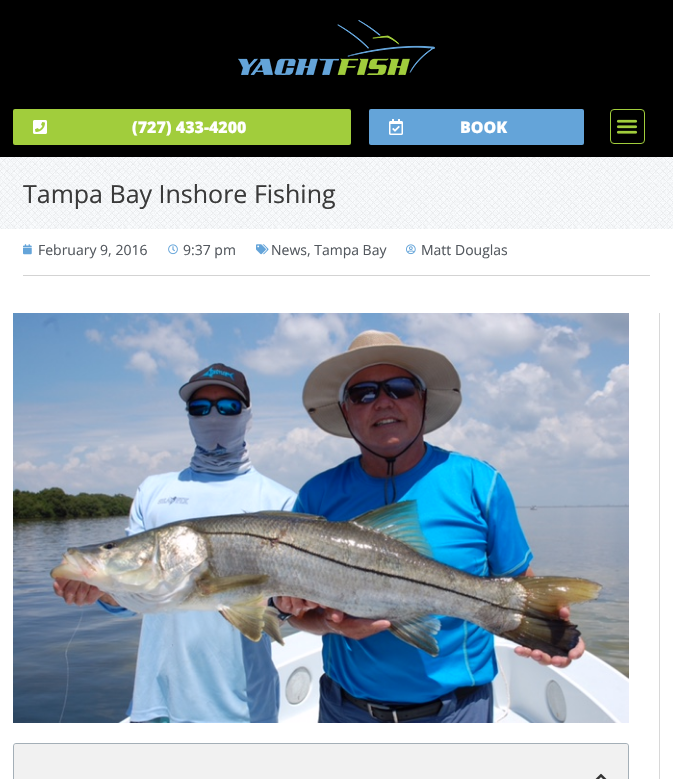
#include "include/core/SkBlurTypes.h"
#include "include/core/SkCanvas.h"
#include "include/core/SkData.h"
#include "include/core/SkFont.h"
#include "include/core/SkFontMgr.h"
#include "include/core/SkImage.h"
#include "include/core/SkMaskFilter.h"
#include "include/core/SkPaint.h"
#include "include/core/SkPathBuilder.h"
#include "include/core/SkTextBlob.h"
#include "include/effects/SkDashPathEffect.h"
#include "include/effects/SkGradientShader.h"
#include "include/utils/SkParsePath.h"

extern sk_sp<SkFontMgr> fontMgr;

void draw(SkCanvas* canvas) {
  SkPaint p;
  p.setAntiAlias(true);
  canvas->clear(SK_ColorWHITE);
  p.setColor(SK_ColorBLACK);
  canvas->drawRect(SkRect::MakeLTRB(0, 0, 673, 157), p);
  canvas->drawImageRect(SkImages::DeferredFromEncodedData(SkData::MakeFromFileName("images/1.png")), SkRect::MakeLTRB(238, 20, 435, 75), SkSamplingOptions());
  p.setColor(SkColorSetRGB(161, 205, 60));
  canvas->drawRoundRect(SkRect::MakeLTRB(13, 109, 351, 145), 2, 2, p);
  canvas->drawImageRect(SkImages::DeferredFromEncodedData(SkData::MakeFromFileName("images/2.png")), SkRect::MakeLTRB(33, 120, 47, 134), SkSamplingOptions());
  p.setColor(SkColorSetRGB(100, 164, 217));
  canvas->drawRoundRect(SkRect::MakeLTRB(369, 109, 584, 145), 2, 2, p);
  canvas->drawImageRect(SkImages::DeferredFromEncodedData(SkData::MakeFromFileName("images/3.png")), SkRect::MakeLTRB(389, 119, 403, 135), SkSamplingOptions());
  p.setStyle(SkPaint::kStroke_Style);
  p.setStrokeWidth(1);
  p.setColor(SkColorSetRGB(161, 205, 60));
  canvas->drawRoundRect(SkRect::MakeLTRB(610.5f, 109.5f, 644.5f, 143.5f), 3.5f, 3.5f, p);
  canvas->drawImageRect(SkImages::DeferredFromEncodedData(SkData::MakeFromFileName("images/4.png")), SkRect::MakeLTRB(616, 119, 638, 134), SkSamplingOptions());
  canvas->drawImageRect(SkImages::DeferredFromEncodedData(SkData::MakeFromFileName("images/5.png")), SkRect::MakeLTRB(0, 157, 673, 229), SkSamplingOptions());
  canvas->drawImageRect(SkImages::DeferredFromEncodedData(SkData::MakeFromFileName("images/6.png")), SkRect::MakeLTRB(23, 244, 32, 255), SkSamplingOptions());
  canvas->drawImageRect(SkImages::DeferredFromEncodedData(SkData::MakeFromFileName("images/7.png")), SkRect::MakeLTRB(168, 244, 178, 255), SkSamplingOptions());
  canvas->drawImageRect(SkImages::DeferredFromEncodedData(SkData::MakeFromFileName("images/8.png")), SkRect::MakeLTRB(256, 244, 269, 255), SkSamplingOptions());
  canvas->drawImageRect(SkImages::DeferredFromEncodedData(SkData::MakeFromFileName("images/9.png")), SkRect::MakeLTRB(406, 244, 416, 255), SkSamplingOptions());
  p.setStyle(SkPaint::kFill_Style);
  p.setColor(SkColorSetRGB(211, 211, 211));
  canvas->drawRect(SkRect::MakeLTRB(23, 275, 650, 276), p);
  p.setColor(SkColorSetRGB(216, 216, 216));
  canvas->drawRect(SkRect::MakeLTRB(659, 313, 660, 779), p);
  canvas->drawImageRect(SkImages::DeferredFromEncodedData(SkData::MakeFromFileName("images/10.png")), SkRect::MakeLTRB(13, 313, 629, 723), SkSamplingOptions());
  p.setStyle(SkPaint::kStroke_Style);
  p.setColor(SkColorSetRGB(164, 175, 183));
  canvas->drawRoundRect(SkRect::MakeLTRB(13.5f, 743.5f, 628.5f, 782.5f), 2.5f, 2.5f, p);
  p.setStyle(SkPaint::kFill_Style);
  p.setColor(SkColorSetARGB(135, 228, 228, 228));
  canvas->drawPath(SkPathBuilder().moveTo(16, 744).lineTo(626, 744).cubicTo(627, 744, 628, 745, 628, 746).lineTo(628, 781).lineTo(14, 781).lineTo(14, 746).cubicTo(14, 745, 15, 744, 16, 744).close().detach(), p);
  canvas->drawImageRect(SkImages::DeferredFromEncodedData(SkData::MakeFromFileName("images/11.png")), SkRect::MakeLTRB(595, 773, 607, 779), SkSamplingOptions());
  SkFont font1(fontMgr->matchFamilyStyle("Open Sans", SkFontStyle(800, SkFontStyle::kNormal_Width, SkFontStyle::kUpright_Slant)), 16);
  font1.setSubpixel(true);
  p.setColor(SK_ColorWHITE);
  canvas->drawString("(727) 433-4200", 132, 133, font1, p);
  canvas->drawString("BOOK", 460, 133, font1, p);
  SkFont font2(fontMgr->matchFamilyStyle("Open Sans", SkFontStyle::Normal()), 25);
  font2.setSubpixel(true);
  p.setColor(SkColorSetRGB(58, 58, 58));
  canvas->drawString("Tampa Bay Inshore Fishing", 23, 203, font2, p);
  SkFont font3(fontMgr->matchFamilyStyle("Open Sans", SkFontStyle::Normal()), 14);
  font3.setSubpixel(true);
  p.setColor(SkColorSetRGB(84, 89, 95));
  canvas->drawString("February 9, 2016", 38, 255, font3, p);
  canvas->drawString("9:37 pm", 183, 255, font3, p);
  canvas->drawString("News, Tampa Bay", 271, 255, font3, p);
  canvas->drawString("Matt Douglas", 421, 255, font3, p);
}
